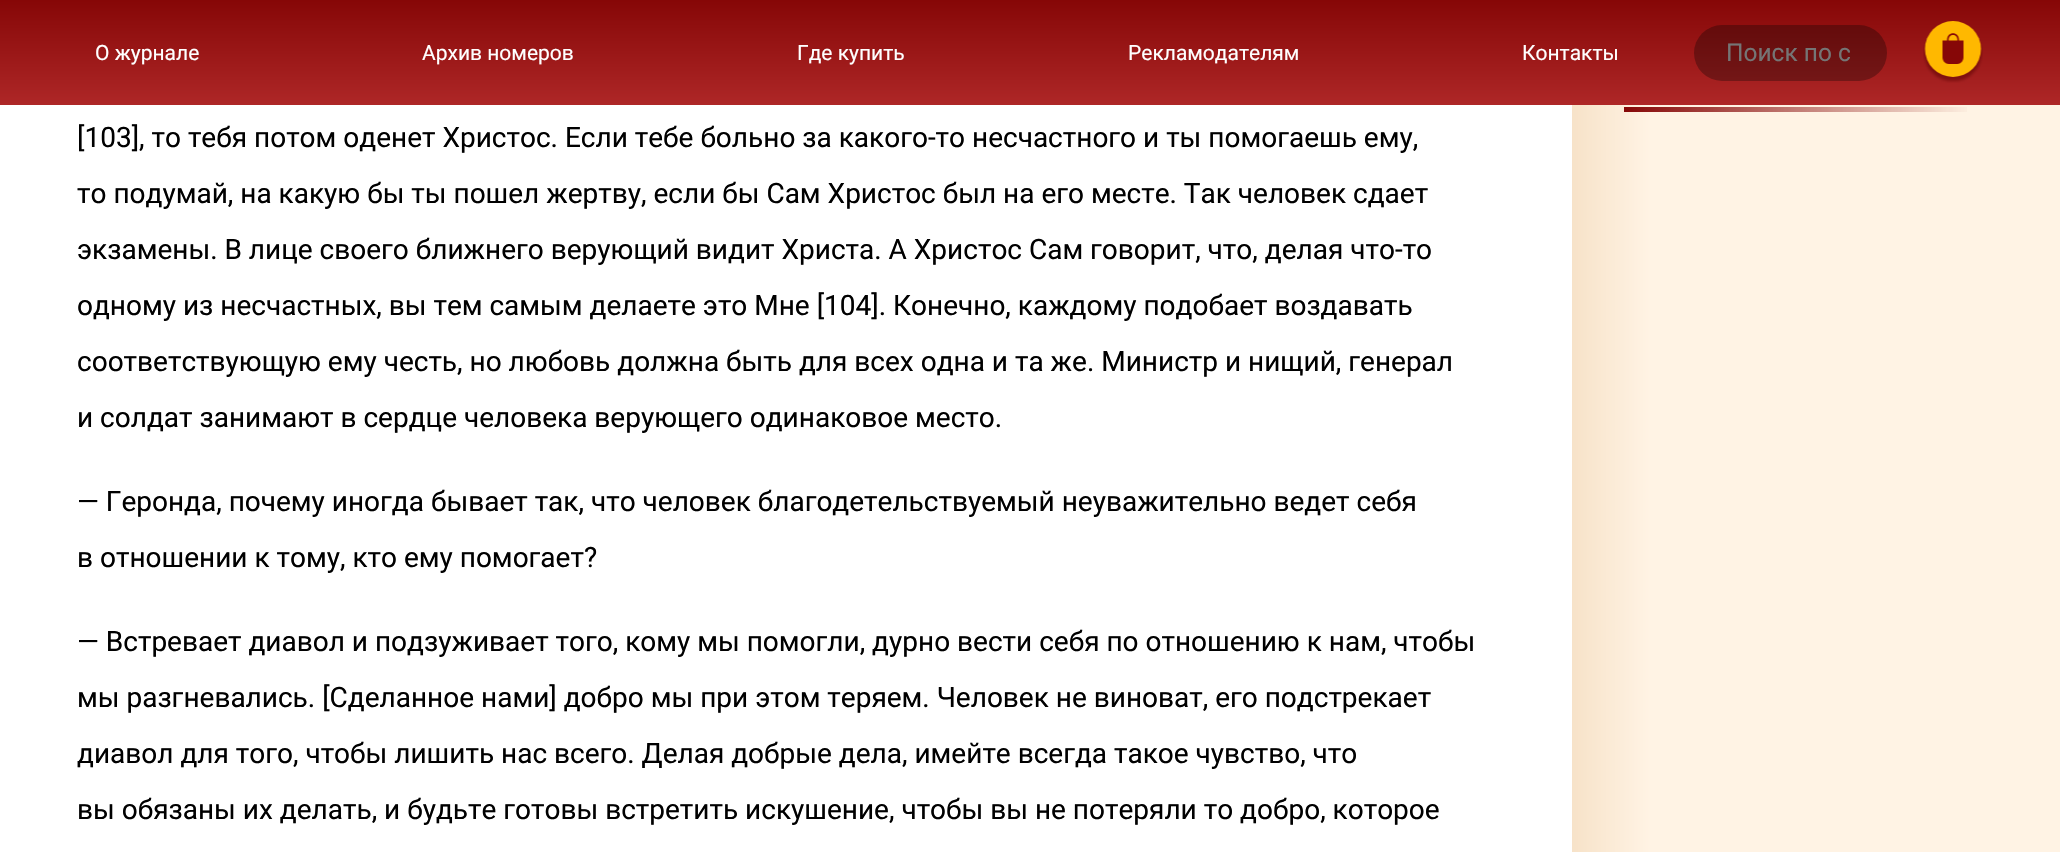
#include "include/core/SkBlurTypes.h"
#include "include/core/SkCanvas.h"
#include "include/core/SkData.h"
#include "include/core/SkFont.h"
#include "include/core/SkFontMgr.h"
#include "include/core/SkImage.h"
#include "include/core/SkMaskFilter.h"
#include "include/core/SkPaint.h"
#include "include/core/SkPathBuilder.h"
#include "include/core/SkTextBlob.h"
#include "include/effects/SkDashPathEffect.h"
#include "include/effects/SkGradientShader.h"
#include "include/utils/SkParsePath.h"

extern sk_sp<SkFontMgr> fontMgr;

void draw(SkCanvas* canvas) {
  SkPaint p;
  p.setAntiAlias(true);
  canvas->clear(SK_ColorWHITE);
  {
    const SkColor colors[] = {SkColorSetRGB(174, 39, 39), SkColorSetRGB(134, 7, 7)};
    const float stops[] = {0, 1};
    const SkPoint ends[] = {{1031, 105}, {1031, 0}};
    p.setShader(SkGradientShader::MakeLinear(ends, colors, stops, 2, SkTileMode::kClamp));
    p.setAlpha(255);
  }
  canvas->drawRect(SkRect::MakeLTRB(0, 0, 2060, 105), p);
  p.setShader(nullptr);
  p.setColor(SkColorSetARGB(77, 0, 0, 0));
  canvas->drawRoundRect(SkRect::MakeLTRB(1694, 25, 1887, 81), 28, 28, p);
  canvas->drawImageRect(SkImages::DeferredFromEncodedData(SkData::MakeFromFileName("images/1.png")), SkRect::MakeLTRB(1923, 21, 1983, 83), SkSamplingOptions());
  p.setColor(SkColorSetRGB(255, 243, 228));
  canvas->drawRect(SkRect::MakeLTRB(1650, 105, 2060, 852), p);
  {
    const SkColor colors[] = {SkColorSetRGB(247, 226, 200), SkColorSetRGB(255, 243, 228)};
    const float stops[] = {0, 1};
    const SkPoint ends[] = {{1571, 287}, {1650, 287}};
    p.setShader(SkGradientShader::MakeLinear(ends, colors, stops, 2, SkTileMode::kClamp));
    p.setAlpha(255);
  }
  canvas->drawRect(SkRect::MakeLTRB(1572, 105, 1650, 852), p);
  {
    const SkColor colors[] = {SkColorSetRGB(134, 7, 7), SkColorSetARGB(0, 134, 7, 7)};
    const float stops[] = {0, 0.97f};
    const SkPoint ends[] = {{1624, 109}, {1985, 109}};
    p.setShader(SkGradientShader::MakeLinear(ends, colors, stops, 2, SkTileMode::kClamp));
    p.setAlpha(255);
  }
  canvas->drawRect(SkRect::MakeLTRB(1624, 107, 1967, 112), p);
  SkFont font1(fontMgr->matchFamilyStyle("Roboto", SkFontStyle::Normal()), 21);
  font1.setSubpixel(true);
  p.setShader(nullptr);
  p.setColor(SK_ColorWHITE);
  canvas->drawString("О журнале", 95, 60, font1, p);
  canvas->drawString("Архив номеров", 422, 60, font1, p);
  canvas->drawString("Где купить", 797, 60, font1, p);
  canvas->drawString("Рекламодателям", 1128, 60, font1, p);
  canvas->drawString("Контакты", 1522, 60, font1, p);
  SkFont font2(fontMgr->matchFamilyStyle("Roboto", SkFontStyle::Normal()), 24.5f);
  font2.setSubpixel(true);
  p.setColor(SkColorSetRGB(117, 117, 117));
  canvas->drawString("Поиск по с", 1726, 61, font2, p);
  SkFont font3(fontMgr->matchFamilyStyle("Roboto", SkFontStyle::Normal()), 28);
  font3.setSubpixel(true);
  p.setColor(SK_ColorBLACK);
  canvas->drawString("[103], то тебя потом оденет Христос. Если тебе больно за какого-то несчастного и ты помогаешь ему,", 77, 147, font3, p);
  canvas->drawString("то подумай, на какую бы ты пошел жертву, если бы Сам Христос был на его месте. Так человек сдает", 77, 203, font3, p);
  canvas->drawString("экзамены. В лице своего ближнего верующий видит Христа. А Христос Сам говорит, что, делая что-то", 77, 259, font3, p);
  canvas->drawString("одному из несчастных, вы тем самым делаете это Мне [104]. Конечно, каждому подобает воздавать", 77, 315, font3, p);
  canvas->drawString("соответствующую ему честь, но любовь должна быть для всех одна и та же. Министр и нищий, генерал", 77, 371, font3, p);
  canvas->drawString("и солдат занимают в сердце человека верующего одинаковое место.", 77, 427, font3, p);
  canvas->drawString("— Геронда, почему иногда бывает так, что человек благодетельствуемый неуважительно ведет себя", 77, 511, font3, p);
  canvas->drawString("в отношении к тому, кто ему помогает?", 77, 567, font3, p);
  canvas->drawString("— Встревает диавол и подзуживает того, кому мы помогли, дурно вести себя по отношению к нам, чтобы", 77, 651, font3, p);
  canvas->drawString("мы разгневались. [Сделанное нами] добро мы при этом теряем. Человек не виноват, его подстрекает", 77, 707, font3, p);
  canvas->drawString("диавол для того, чтобы лишить нас всего. Делая добрые дела, имейте всегда такое чувство, что", 77, 763, font3, p);
  canvas->drawString("вы обязаны их делать, и будьте готовы встретить искушение, чтобы вы не потеряли то добро, которое", 77, 819, font3, p);
}
